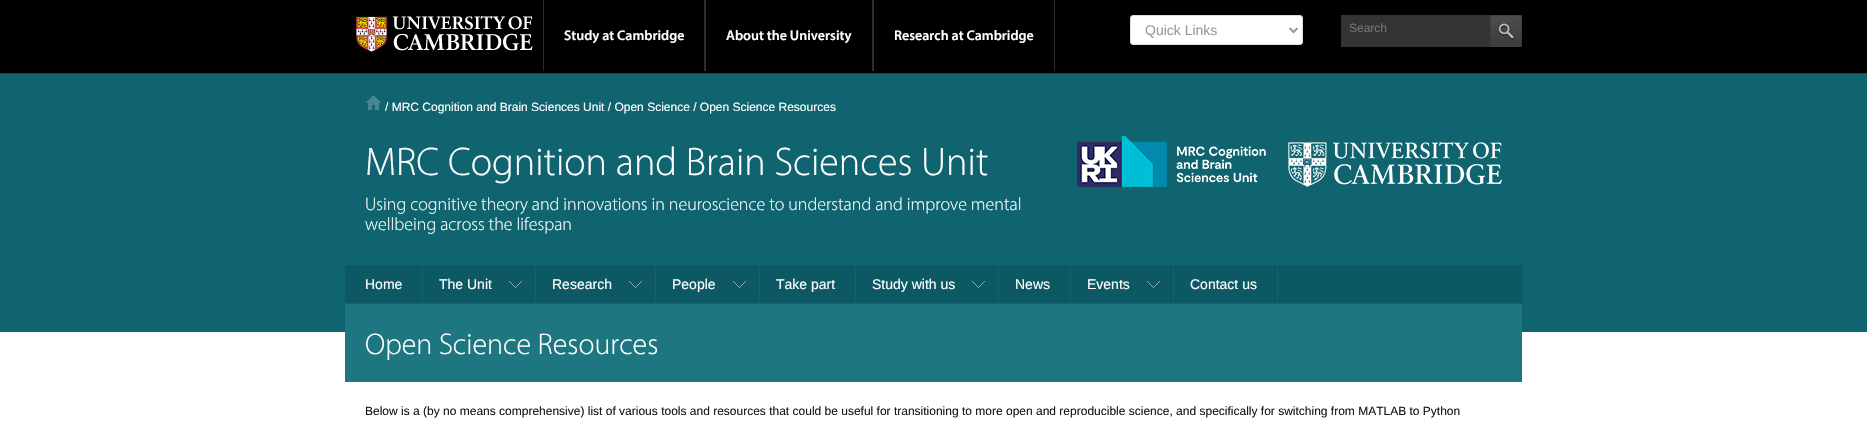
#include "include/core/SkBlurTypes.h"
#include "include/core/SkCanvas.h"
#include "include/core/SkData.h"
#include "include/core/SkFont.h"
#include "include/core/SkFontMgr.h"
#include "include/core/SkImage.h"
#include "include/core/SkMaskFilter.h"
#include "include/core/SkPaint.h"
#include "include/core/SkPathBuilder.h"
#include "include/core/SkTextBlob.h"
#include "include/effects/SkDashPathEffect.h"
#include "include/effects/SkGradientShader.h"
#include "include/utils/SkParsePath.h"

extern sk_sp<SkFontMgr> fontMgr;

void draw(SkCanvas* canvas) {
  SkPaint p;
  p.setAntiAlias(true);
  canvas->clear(SK_ColorWHITE);
  p.setColor(SK_ColorBLACK);
  canvas->drawRect(SkRect::MakeLTRB(0, 0, 1867, 73), p);
  canvas->drawImageRect(SkImages::DeferredFromEncodedData(SkData::MakeFromFileName("images/1.png")), SkRect::MakeLTRB(356, 16, 533, 52), SkSamplingOptions());
  p.setColor(SkColorSetRGB(46, 46, 46));
  canvas->drawRect(SkRect::MakeLTRB(704, 0, 706, 71), p);
  canvas->drawRect(SkRect::MakeLTRB(543, 0, 544, 71), p);
  canvas->drawRect(SkRect::MakeLTRB(872, 0, 874, 71), p);
  canvas->drawRect(SkRect::MakeLTRB(1054, 0, 1055, 71), p);
  p.setColor(SK_ColorWHITE);
  canvas->drawRoundRect(SkRect::MakeLTRB(1130.5f, 15.5f, 1302.5f, 44.5f), 2.5f, 2.5f, p);
  p.setStyle(SkPaint::kStroke_Style);
  p.setStrokeWidth(1);
  p.setColor(SkColorSetRGB(221, 221, 221));
  canvas->drawRoundRect(SkRect::MakeLTRB(1130.5f, 15.5f, 1302.5f, 44.5f), 2.5f, 2.5f, p);
  p.setStrokeWidth(2);
  p.setColor(SkColorSetRGB(153, 153, 153));
  canvas->drawPath(SkPathBuilder().moveTo(1289.5f, 28).lineTo(1293.5f, 32).lineTo(1297.5f, 28).detach(), p);
  p.setStyle(SkPaint::kFill_Style);
  p.setColor(SkColorSetRGB(52, 52, 52));
  canvas->drawRect(SkRect::MakeLTRB(1341, 15, 1522, 47), p);
  canvas->drawImageRect(SkImages::DeferredFromEncodedData(SkData::MakeFromFileName("images/2.png")), SkRect::MakeLTRB(1490, 15, 1522, 47), SkSamplingOptions());
  p.setColor(SkColorSetRGB(63, 63, 63));
  canvas->drawRect(SkRect::MakeLTRB(0, 73, 1867, 74), p);
  p.setColor(SkColorSetRGB(16, 100, 112));
  canvas->drawRect(SkRect::MakeLTRB(0, 74, 1867, 332), p);
  canvas->drawImageRect(SkImages::DeferredFromEncodedData(SkData::MakeFromFileName("images/3.png")), SkRect::MakeLTRB(366, 95, 381, 110), SkSamplingOptions());
  canvas->drawImageRect(SkImages::DeferredFromEncodedData(SkData::MakeFromFileName("images/4.png")), SkRect::MakeLTRB(1077, 136, 1502, 187), SkSamplingOptions());
  p.setColor(SkColorSetRGB(12, 89, 99));
  canvas->drawRect(SkRect::MakeLTRB(345, 265, 1522, 303), p);
  p.setColor(SkColorSetRGB(16, 100, 112));
  canvas->drawRect(SkRect::MakeLTRB(422, 265, 423, 303), p);
  canvas->drawRect(SkRect::MakeLTRB(535, 265, 536, 303), p);
  canvas->drawImageRect(SkImages::DeferredFromEncodedData(SkData::MakeFromFileName("images/5.png")), SkRect::MakeLTRB(509, 281, 522, 288), SkSamplingOptions());
  canvas->drawRect(SkRect::MakeLTRB(655, 265, 656, 303), p);
  canvas->drawImageRect(SkImages::DeferredFromEncodedData(SkData::MakeFromFileName("images/5.png")), SkRect::MakeLTRB(629, 281, 642, 288), SkSamplingOptions());
  canvas->drawRect(SkRect::MakeLTRB(759, 265, 760, 303), p);
  canvas->drawImageRect(SkImages::DeferredFromEncodedData(SkData::MakeFromFileName("images/5.png")), SkRect::MakeLTRB(733, 281, 746, 288), SkSamplingOptions());
  canvas->drawRect(SkRect::MakeLTRB(855, 265, 856, 303), p);
  canvas->drawRect(SkRect::MakeLTRB(998, 265, 999, 303), p);
  canvas->drawImageRect(SkImages::DeferredFromEncodedData(SkData::MakeFromFileName("images/5.png")), SkRect::MakeLTRB(972, 281, 985, 288), SkSamplingOptions());
  canvas->drawRect(SkRect::MakeLTRB(1070, 265, 1071, 303), p);
  canvas->drawRect(SkRect::MakeLTRB(1173, 265, 1174, 303), p);
  canvas->drawImageRect(SkImages::DeferredFromEncodedData(SkData::MakeFromFileName("images/5.png")), SkRect::MakeLTRB(1147, 281, 1160, 288), SkSamplingOptions());
  canvas->drawRect(SkRect::MakeLTRB(1277, 265, 1278, 303), p);
  p.setColor(SkColorSetRGB(30, 118, 128));
  canvas->drawRect(SkRect::MakeLTRB(345, 304, 1522, 382), p);
  SkFont font1(fontMgr->matchFamilyStyle("Myriad", SkFontStyle(600, SkFontStyle::kNormal_Width, SkFontStyle::kUpright_Slant)), 14);
  font1.setSubpixel(true);
  p.setColor(SK_ColorWHITE);
  canvas->drawString("Study at Cambridge", 564, 40, font1, p);
  canvas->drawString("About the University", 726, 40, font1, p);
  canvas->drawString("Research at Cambridge", 894, 40, font1, p);
  SkFont font2(fontMgr->matchFamilyStyle("Liberation Sans", SkFontStyle::Normal()), 14);
  font2.setSubpixel(true);
  p.setColor(SkColorSetRGB(153, 153, 153));
  canvas->drawString("Quick Links", 1145, 35, font2, p);
  SkFont font3(fontMgr->matchFamilyStyle("Liberation Sans", SkFontStyle::Normal()), 12);
  font3.setSubpixel(true);
  p.setColor(SkColorSetRGB(117, 117, 117));
  canvas->drawString("Search", 1349, 32, font3, p);
  p.setColor(SK_ColorWHITE);
  canvas->drawString("/ MRC Cognition and Brain Sciences Unit / Open Science / Open Science Resources", 385, 111, font3, p);
  SkFont font4(fontMgr->matchFamilyStyle("Myriad", SkFontStyle(300, SkFontStyle::kNormal_Width, SkFontStyle::kUpright_Slant)), 40);
  font4.setSubpixel(true);
  canvas->drawString("MRC Cognition and Brain Sciences Unit", 365, 175, font4, p);
  SkFont font5(fontMgr->matchFamilyStyle("Myriad", SkFontStyle(300, SkFontStyle::kNormal_Width, SkFontStyle::kUpright_Slant)), 18);
  font5.setSubpixel(true);
  canvas->drawString("Using cognitive theory and innovations in neuroscience to understand and improve mental", 365, 210, font5, p);
  canvas->drawString("wellbeing across the lifespan", 365, 230, font5, p);
  canvas->drawString("Home", 365, 289, font2, p);
  canvas->drawString("The Unit", 439, 289, font2, p);
  canvas->drawString("Research", 552, 289, font2, p);
  canvas->drawString("People", 672, 289, font2, p);
  canvas->drawString("Take part", 776, 289, font2, p);
  canvas->drawString("Study with us", 872, 289, font2, p);
  canvas->drawString("News", 1015, 289, font2, p);
  canvas->drawString("Events", 1087, 289, font2, p);
  canvas->drawString("Contact us", 1190, 289, font2, p);
  SkFont font6(fontMgr->matchFamilyStyle("Myriad", SkFontStyle(300, SkFontStyle::kNormal_Width, SkFontStyle::kUpright_Slant)), 30);
  font6.setSubpixel(true);
  canvas->drawString("Open Science Resources", 365, 354, font6, p);
  p.setColor(SkColorSetRGB(23, 23, 23));
  canvas->drawString("Below is a (by no means comprehensive) list of various tools and resources that could be useful for transitioning to more open and reproducible science, and specifically for switching from MATLAB to Python", 365, 415, font3, p);
}
